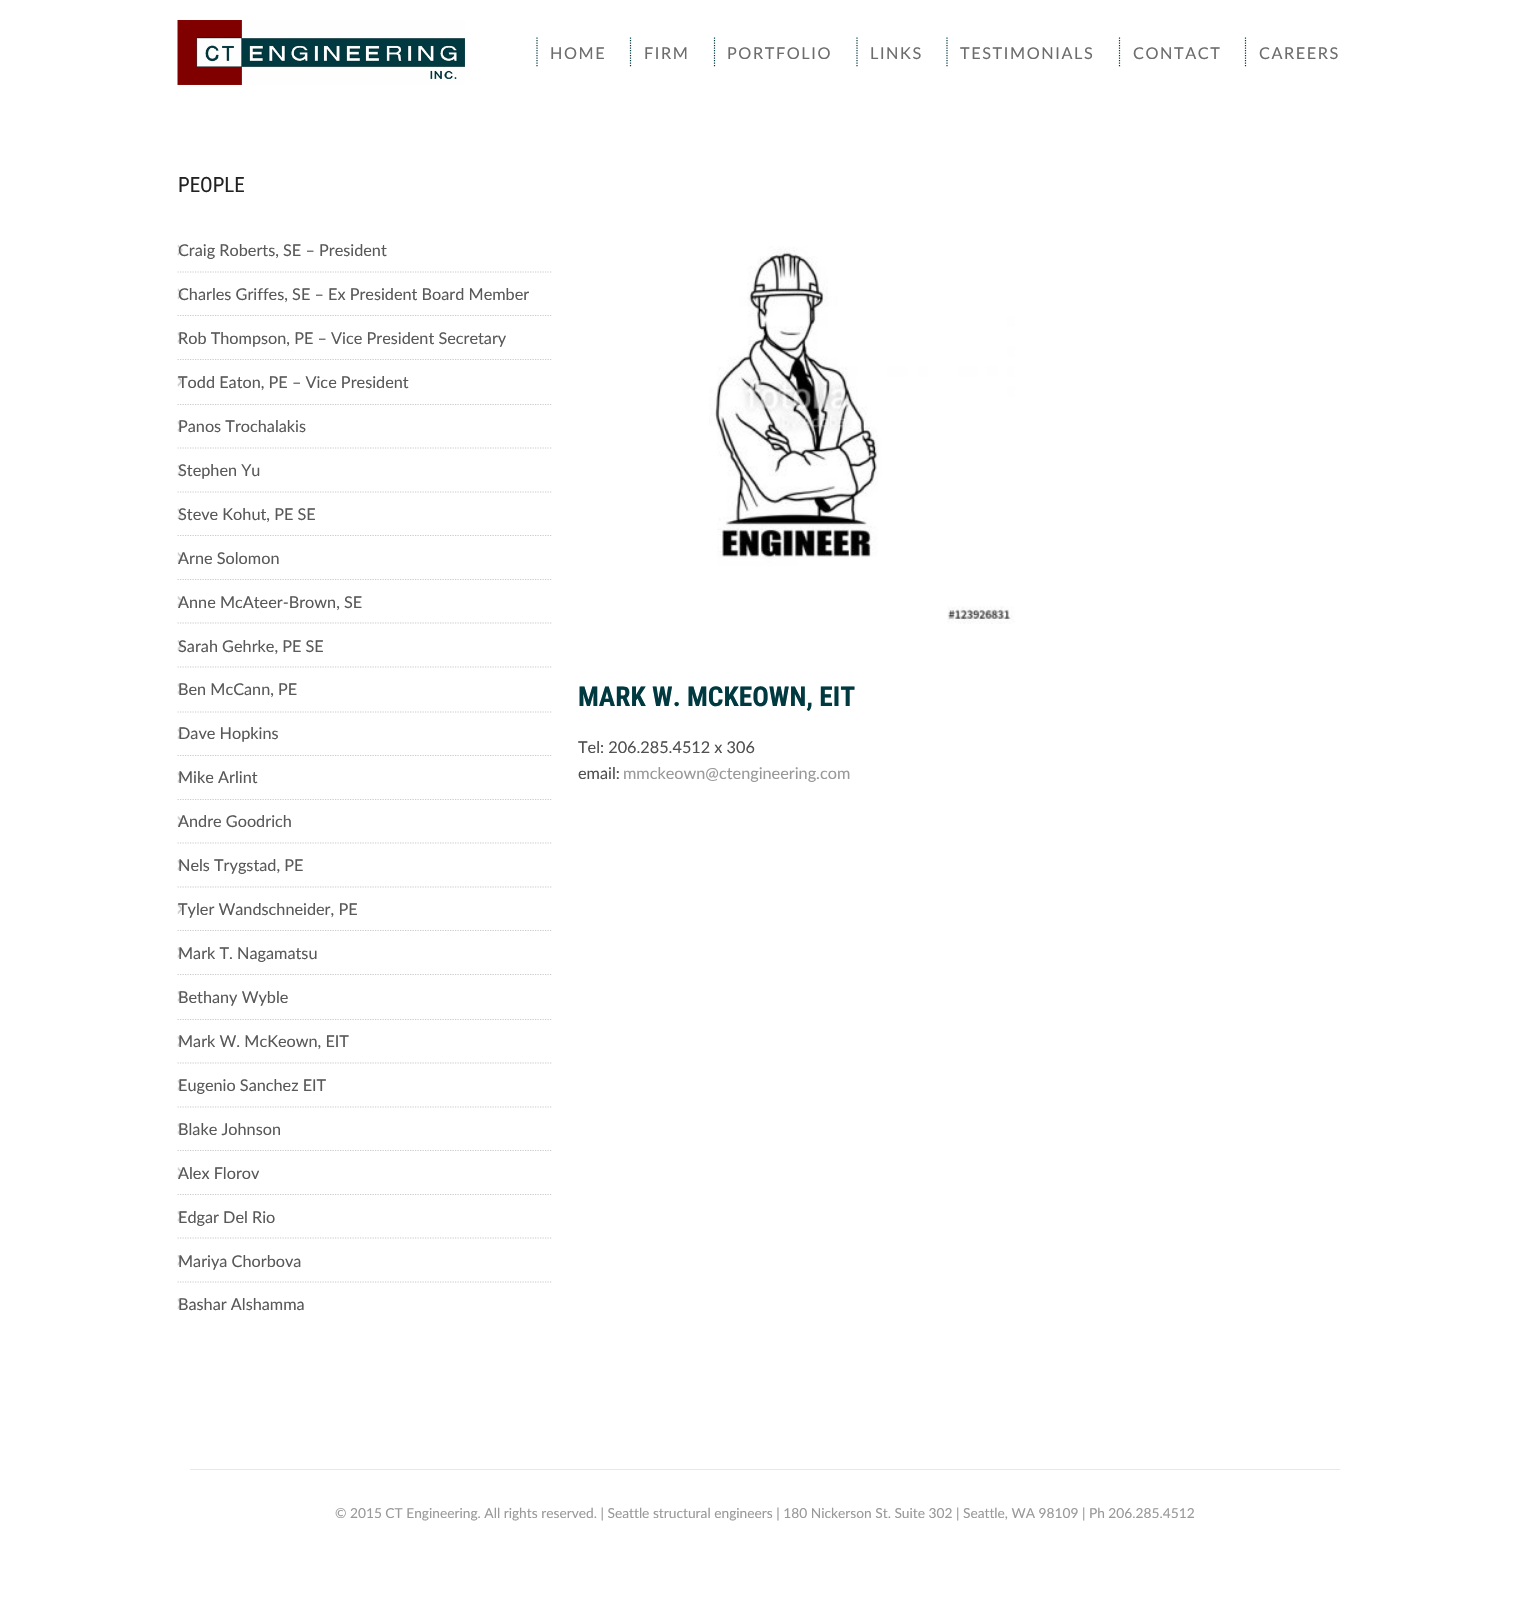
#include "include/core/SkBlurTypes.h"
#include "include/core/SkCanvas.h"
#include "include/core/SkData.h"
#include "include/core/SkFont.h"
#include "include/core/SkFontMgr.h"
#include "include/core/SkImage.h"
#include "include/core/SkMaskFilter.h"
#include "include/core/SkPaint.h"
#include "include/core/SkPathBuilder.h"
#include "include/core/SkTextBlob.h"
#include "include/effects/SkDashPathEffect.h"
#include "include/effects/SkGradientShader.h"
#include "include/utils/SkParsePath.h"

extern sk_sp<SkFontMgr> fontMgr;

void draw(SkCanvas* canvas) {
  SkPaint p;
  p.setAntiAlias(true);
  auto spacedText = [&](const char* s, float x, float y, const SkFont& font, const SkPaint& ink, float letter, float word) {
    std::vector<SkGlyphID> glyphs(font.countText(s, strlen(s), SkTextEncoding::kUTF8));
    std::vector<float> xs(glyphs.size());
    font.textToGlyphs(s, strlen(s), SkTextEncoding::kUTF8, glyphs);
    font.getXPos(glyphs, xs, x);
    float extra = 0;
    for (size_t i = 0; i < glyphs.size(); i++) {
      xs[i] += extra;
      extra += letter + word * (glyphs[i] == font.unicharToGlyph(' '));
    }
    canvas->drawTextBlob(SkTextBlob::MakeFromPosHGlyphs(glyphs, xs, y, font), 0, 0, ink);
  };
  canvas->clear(SK_ColorWHITE);
  canvas->drawImageRect(SkImages::DeferredFromEncodedData(SkData::MakeFromFileName("images/1.png")), SkRect::MakeLTRB(177, 20, 465, 85), SkSamplingOptions());
  p.setStyle(SkPaint::kStroke_Style);
  p.setStrokeWidth(1.2f);
  p.setColor(SkColorSetRGB(0, 57, 64));
  p.setPathEffect(SkDashPathEffect::Make({{1.25f, 1.25f}}, 0));
  canvas->drawPath(SkPathBuilder().moveTo(537, 37.5f).lineTo(537, 67.5f).detach(), p);
  p.setPathEffect(nullptr);
  p.setPathEffect(SkDashPathEffect::Make({{1.25f, 1.25f}}, 0));
  canvas->drawPath(SkPathBuilder().moveTo(630.5f, 37.5f).lineTo(630.5f, 67.5f).detach(), p);
  p.setPathEffect(nullptr);
  p.setPathEffect(SkDashPathEffect::Make({{1.25f, 1.25f}}, 0));
  canvas->drawPath(SkPathBuilder().moveTo(714.5f, 37.5f).lineTo(714.5f, 67.5f).detach(), p);
  p.setPathEffect(nullptr);
  p.setPathEffect(SkDashPathEffect::Make({{1.25f, 1.25f}}, 0));
  canvas->drawPath(SkPathBuilder().moveTo(857, 37.5f).lineTo(857, 67.5f).detach(), p);
  p.setPathEffect(nullptr);
  p.setPathEffect(SkDashPathEffect::Make({{1.25f, 1.25f}}, 0));
  canvas->drawPath(SkPathBuilder().moveTo(947, 37.5f).lineTo(947, 67.5f).detach(), p);
  p.setPathEffect(nullptr);
  p.setPathEffect(SkDashPathEffect::Make({{1.25f, 1.25f}}, 0));
  canvas->drawPath(SkPathBuilder().moveTo(1119.5f, 37.5f).lineTo(1119.5f, 67.5f).detach(), p);
  p.setPathEffect(nullptr);
  p.setPathEffect(SkDashPathEffect::Make({{1.25f, 1.25f}}, 0));
  canvas->drawPath(SkPathBuilder().moveTo(1245.5f, 37.5f).lineTo(1245.5f, 67.5f).detach(), p);
  p.setPathEffect(nullptr);
  canvas->drawImageRect(SkImages::DeferredFromEncodedData(SkData::MakeFromFileName("images/2.png")), SkRect::MakeLTRB(177, 245, 183, 256), SkSamplingOptions());
  p.setColor(SkColorSetRGB(204, 204, 204));
  p.setPathEffect(SkDashPathEffect::Make({{1.25f, 1.25f}}, 0));
  canvas->drawPath(SkPathBuilder().moveTo(177.5f, 272).lineTo(552.5f, 272).detach(), p);
  p.setPathEffect(nullptr);
  canvas->drawImageRect(SkImages::DeferredFromEncodedData(SkData::MakeFromFileName("images/3.png")), SkRect::MakeLTRB(177, 288, 183, 299), SkSamplingOptions());
  p.setPathEffect(SkDashPathEffect::Make({{1.25f, 1.25f}}, 0));
  canvas->drawPath(SkPathBuilder().moveTo(177.5f, 315.5f).lineTo(552.5f, 315.5f).detach(), p);
  p.setPathEffect(nullptr);
  canvas->drawImageRect(SkImages::DeferredFromEncodedData(SkData::MakeFromFileName("images/4.png")), SkRect::MakeLTRB(177, 332, 183, 343), SkSamplingOptions());
  p.setPathEffect(SkDashPathEffect::Make({{1.25f, 1.25f}}, 0));
  canvas->drawPath(SkPathBuilder().moveTo(177.5f, 359.5f).lineTo(552.5f, 359.5f).detach(), p);
  p.setPathEffect(nullptr);
  canvas->drawImageRect(SkImages::DeferredFromEncodedData(SkData::MakeFromFileName("images/5.png")), SkRect::MakeLTRB(177, 376, 183, 387), SkSamplingOptions());
  p.setPathEffect(SkDashPathEffect::Make({{1.25f, 1.25f}}, 0));
  canvas->drawPath(SkPathBuilder().moveTo(177.5f, 404.5f).lineTo(552.5f, 404.5f).detach(), p);
  p.setPathEffect(nullptr);
  canvas->drawImageRect(SkImages::DeferredFromEncodedData(SkData::MakeFromFileName("images/5.png")), SkRect::MakeLTRB(177, 421, 183, 432), SkSamplingOptions());
  p.setPathEffect(SkDashPathEffect::Make({{1.25f, 1.25f}}, 0));
  canvas->drawPath(SkPathBuilder().moveTo(177.5f, 448).lineTo(552.5f, 448).detach(), p);
  p.setPathEffect(nullptr);
  canvas->drawImageRect(SkImages::DeferredFromEncodedData(SkData::MakeFromFileName("images/2.png")), SkRect::MakeLTRB(177, 465, 183, 476), SkSamplingOptions());
  p.setPathEffect(SkDashPathEffect::Make({{1.25f, 1.25f}}, 0));
  canvas->drawPath(SkPathBuilder().moveTo(177.5f, 492).lineTo(552.5f, 492).detach(), p);
  p.setPathEffect(nullptr);
  canvas->drawImageRect(SkImages::DeferredFromEncodedData(SkData::MakeFromFileName("images/6.png")), SkRect::MakeLTRB(177, 508, 183, 519), SkSamplingOptions());
  p.setPathEffect(SkDashPathEffect::Make({{1.25f, 1.25f}}, 0));
  canvas->drawPath(SkPathBuilder().moveTo(177.5f, 535.5f).lineTo(552.5f, 535.5f).detach(), p);
  p.setPathEffect(nullptr);
  canvas->drawImageRect(SkImages::DeferredFromEncodedData(SkData::MakeFromFileName("images/4.png")), SkRect::MakeLTRB(177, 552, 183, 563), SkSamplingOptions());
  p.setPathEffect(SkDashPathEffect::Make({{1.25f, 1.25f}}, 0));
  canvas->drawPath(SkPathBuilder().moveTo(177.5f, 579.5f).lineTo(552.5f, 579.5f).detach(), p);
  p.setPathEffect(nullptr);
  canvas->drawImageRect(SkImages::DeferredFromEncodedData(SkData::MakeFromFileName("images/5.png")), SkRect::MakeLTRB(177, 596, 183, 607), SkSamplingOptions());
  p.setPathEffect(SkDashPathEffect::Make({{1.25f, 1.25f}}, 0));
  canvas->drawPath(SkPathBuilder().moveTo(177.5f, 623).lineTo(552.5f, 623).detach(), p);
  p.setPathEffect(nullptr);
  canvas->drawImageRect(SkImages::DeferredFromEncodedData(SkData::MakeFromFileName("images/2.png")), SkRect::MakeLTRB(177, 640, 183, 651), SkSamplingOptions());
  p.setPathEffect(SkDashPathEffect::Make({{1.25f, 1.25f}}, 0));
  canvas->drawPath(SkPathBuilder().moveTo(177.5f, 667).lineTo(552.5f, 667).detach(), p);
  p.setPathEffect(nullptr);
  canvas->drawImageRect(SkImages::DeferredFromEncodedData(SkData::MakeFromFileName("images/6.png")), SkRect::MakeLTRB(177, 683, 183, 694), SkSamplingOptions());
  p.setPathEffect(SkDashPathEffect::Make({{1.25f, 1.25f}}, 0));
  canvas->drawPath(SkPathBuilder().moveTo(177.5f, 712).lineTo(552.5f, 712).detach(), p);
  p.setPathEffect(nullptr);
  canvas->drawImageRect(SkImages::DeferredFromEncodedData(SkData::MakeFromFileName("images/6.png")), SkRect::MakeLTRB(177, 728, 183, 739), SkSamplingOptions());
  p.setPathEffect(SkDashPathEffect::Make({{1.25f, 1.25f}}, 0));
  canvas->drawPath(SkPathBuilder().moveTo(177.5f, 755.5f).lineTo(552.5f, 755.5f).detach(), p);
  p.setPathEffect(nullptr);
  canvas->drawImageRect(SkImages::DeferredFromEncodedData(SkData::MakeFromFileName("images/4.png")), SkRect::MakeLTRB(177, 772, 183, 783), SkSamplingOptions());
  p.setPathEffect(SkDashPathEffect::Make({{1.25f, 1.25f}}, 0));
  canvas->drawPath(SkPathBuilder().moveTo(177.5f, 799.5f).lineTo(552.5f, 799.5f).detach(), p);
  p.setPathEffect(nullptr);
  canvas->drawImageRect(SkImages::DeferredFromEncodedData(SkData::MakeFromFileName("images/5.png")), SkRect::MakeLTRB(177, 816, 183, 827), SkSamplingOptions());
  p.setPathEffect(SkDashPathEffect::Make({{1.25f, 1.25f}}, 0));
  canvas->drawPath(SkPathBuilder().moveTo(177.5f, 843).lineTo(552.5f, 843).detach(), p);
  p.setPathEffect(nullptr);
  canvas->drawImageRect(SkImages::DeferredFromEncodedData(SkData::MakeFromFileName("images/2.png")), SkRect::MakeLTRB(177, 860, 183, 871), SkSamplingOptions());
  p.setPathEffect(SkDashPathEffect::Make({{1.25f, 1.25f}}, 0));
  canvas->drawPath(SkPathBuilder().moveTo(177.5f, 887).lineTo(552.5f, 887).detach(), p);
  p.setPathEffect(nullptr);
  canvas->drawImageRect(SkImages::DeferredFromEncodedData(SkData::MakeFromFileName("images/6.png")), SkRect::MakeLTRB(177, 903, 183, 914), SkSamplingOptions());
  p.setPathEffect(SkDashPathEffect::Make({{1.25f, 1.25f}}, 0));
  canvas->drawPath(SkPathBuilder().moveTo(177.5f, 930.5f).lineTo(552.5f, 930.5f).detach(), p);
  p.setPathEffect(nullptr);
  canvas->drawImageRect(SkImages::DeferredFromEncodedData(SkData::MakeFromFileName("images/4.png")), SkRect::MakeLTRB(177, 947, 183, 958), SkSamplingOptions());
  p.setPathEffect(SkDashPathEffect::Make({{1.25f, 1.25f}}, 0));
  canvas->drawPath(SkPathBuilder().moveTo(177.5f, 974.5f).lineTo(552.5f, 974.5f).detach(), p);
  p.setPathEffect(nullptr);
  canvas->drawImageRect(SkImages::DeferredFromEncodedData(SkData::MakeFromFileName("images/5.png")), SkRect::MakeLTRB(177, 991, 183, 1002), SkSamplingOptions());
  p.setPathEffect(SkDashPathEffect::Make({{1.25f, 1.25f}}, 0));
  canvas->drawPath(SkPathBuilder().moveTo(177.5f, 1019.5f).lineTo(552.5f, 1019.5f).detach(), p);
  p.setPathEffect(nullptr);
  canvas->drawImageRect(SkImages::DeferredFromEncodedData(SkData::MakeFromFileName("images/5.png")), SkRect::MakeLTRB(177, 1036, 183, 1047), SkSamplingOptions());
  p.setPathEffect(SkDashPathEffect::Make({{1.25f, 1.25f}}, 0));
  canvas->drawPath(SkPathBuilder().moveTo(177.5f, 1063).lineTo(552.5f, 1063).detach(), p);
  p.setPathEffect(nullptr);
  canvas->drawImageRect(SkImages::DeferredFromEncodedData(SkData::MakeFromFileName("images/2.png")), SkRect::MakeLTRB(177, 1080, 183, 1091), SkSamplingOptions());
  p.setPathEffect(SkDashPathEffect::Make({{1.25f, 1.25f}}, 0));
  canvas->drawPath(SkPathBuilder().moveTo(177.5f, 1107).lineTo(552.5f, 1107).detach(), p);
  p.setPathEffect(nullptr);
  canvas->drawImageRect(SkImages::DeferredFromEncodedData(SkData::MakeFromFileName("images/6.png")), SkRect::MakeLTRB(177, 1123, 183, 1134), SkSamplingOptions());
  p.setPathEffect(SkDashPathEffect::Make({{1.25f, 1.25f}}, 0));
  canvas->drawPath(SkPathBuilder().moveTo(177.5f, 1150.5f).lineTo(552.5f, 1150.5f).detach(), p);
  p.setPathEffect(nullptr);
  canvas->drawImageRect(SkImages::DeferredFromEncodedData(SkData::MakeFromFileName("images/7.png")), SkRect::MakeLTRB(177, 1167, 183, 1178), SkSamplingOptions());
  p.setPathEffect(SkDashPathEffect::Make({{1.25f, 1.25f}}, 0));
  canvas->drawPath(SkPathBuilder().moveTo(177.5f, 1194.5f).lineTo(552.5f, 1194.5f).detach(), p);
  p.setPathEffect(nullptr);
  canvas->drawImageRect(SkImages::DeferredFromEncodedData(SkData::MakeFromFileName("images/5.png")), SkRect::MakeLTRB(177, 1211, 183, 1222), SkSamplingOptions());
  p.setPathEffect(SkDashPathEffect::Make({{1.25f, 1.25f}}, 0));
  canvas->drawPath(SkPathBuilder().moveTo(177.5f, 1238).lineTo(552.5f, 1238).detach(), p);
  p.setPathEffect(nullptr);
  canvas->drawImageRect(SkImages::DeferredFromEncodedData(SkData::MakeFromFileName("images/2.png")), SkRect::MakeLTRB(177, 1255, 183, 1266), SkSamplingOptions());
  p.setPathEffect(SkDashPathEffect::Make({{1.25f, 1.25f}}, 0));
  canvas->drawPath(SkPathBuilder().moveTo(177.5f, 1282).lineTo(552.5f, 1282).detach(), p);
  p.setPathEffect(nullptr);
  canvas->drawImageRect(SkImages::DeferredFromEncodedData(SkData::MakeFromFileName("images/6.png")), SkRect::MakeLTRB(177, 1298, 183, 1309), SkSamplingOptions());
  canvas->drawImageRect(SkImages::DeferredFromEncodedData(SkData::MakeFromFileName("images/8.png")), SkRect::MakeLTRB(709, 246, 1015, 624), SkSamplingOptions());
  p.setStyle(SkPaint::kFill_Style);
  p.setColor(SkColorSetRGB(232, 232, 232));
  canvas->drawRect(SkRect::MakeLTRB(190, 1469, 1340, 1470), p);
  SkFont font1(fontMgr->matchFamilyStyle("Lato", SkFontStyle::Normal()), 16.25f);
  font1.setSubpixel(true);
  p.setColor(SkColorSetRGB(109, 109, 109));
  spacedText("HOME", 550, 59, font1, p, 1.6f, 0);
  spacedText("FIRM", 644, 59, font1, p, 1.6f, 0);
  spacedText("PORTFOLIO", 727, 59, font1, p, 1.6f, 0);
  spacedText("LINKS", 870, 59, font1, p, 1.6f, 0);
  spacedText("TESTIMONIALS", 960, 59, font1, p, 1.6f, 0);
  spacedText("CONTACT", 1133, 59, font1, p, 1.6f, 0);
  spacedText("CAREERS", 1259, 59, font1, p, 1.6f, 0);
  SkFont font2(fontMgr->matchFamilyStyle("Roboto Condensed", SkFontStyle::Normal()), 21);
  font2.setSubpixel(true);
  p.setColor(SkColorSetRGB(34, 34, 34));
  canvas->drawString("PEOPLE", 178, 192, font2, p);
  p.setColor(SkColorSetRGB(89, 89, 89));
  canvas->drawString("Craig Roberts, SE – President", 178, 256, font1, p);
  canvas->drawString("Charles Griffes, SE – Ex President Board Member", 178, 300, font1, p);
  canvas->drawString("Rob Thompson, PE – Vice President Secretary", 178, 344, font1, p);
  canvas->drawString("Todd Eaton, PE – Vice President", 178, 388, font1, p);
  canvas->drawString("Panos Trochalakis", 178, 432, font1, p);
  canvas->drawString("Stephen Yu", 178, 476, font1, p);
  canvas->drawString("Steve Kohut, PE SE", 178, 520, font1, p);
  canvas->drawString("Arne Solomon", 178, 564, font1, p);
  canvas->drawString("Anne McAteer-Brown, SE", 178, 608, font1, p);
  canvas->drawString("Sarah Gehrke, PE SE", 178, 652, font1, p);
  canvas->drawString("Ben McCann, PE", 178, 695, font1, p);
  canvas->drawString("Dave Hopkins", 178, 739, font1, p);
  canvas->drawString("Mike Arlint", 178, 783, font1, p);
  canvas->drawString("Andre Goodrich", 178, 827, font1, p);
  canvas->drawString("Nels Trygstad, PE", 178, 871, font1, p);
  canvas->drawString("Tyler Wandschneider, PE", 178, 915, font1, p);
  canvas->drawString("Mark T. Nagamatsu", 178, 959, font1, p);
  canvas->drawString("Bethany Wyble", 178, 1003, font1, p);
  canvas->drawString("Mark W. McKeown, EIT", 178, 1047, font1, p);
  canvas->drawString("Eugenio Sanchez EIT", 178, 1091, font1, p);
  canvas->drawString("Blake Johnson", 178, 1135, font1, p);
  canvas->drawString("Alex Florov", 178, 1179, font1, p);
  canvas->drawString("Edgar Del Rio", 178, 1223, font1, p);
  canvas->drawString("Mariya Chorbova", 178, 1267, font1, p);
  canvas->drawString("Bashar Alshamma", 178, 1310, font1, p);
  SkFont font3(fontMgr->matchFamilyStyle("Roboto Condensed", SkFontStyle::Bold()), 27.5f);
  font3.setSubpixel(true);
  p.setColor(SkColorSetRGB(0, 57, 64));
  canvas->drawString("MARK W. MCKEOWN, EIT", 578, 706, font3, p);
  p.setColor(SkColorSetRGB(80, 80, 80));
  canvas->drawString("Tel: 206.285.4512 x 306", 578, 753, font1, p);
  canvas->drawString("email:", 578, 779, font1, p);
  p.setColor(SkColorSetRGB(153, 153, 153));
  canvas->drawString("mmckeown@ctengineering.com", 623, 779, font1, p);
  SkFont font4(fontMgr->matchFamilyStyle("Lato", SkFontStyle::Normal()), 13.75f);
  font4.setSubpixel(true);
  canvas->drawString("© 2015 CT Engineering. All rights reserved. | Seattle structural engineers | 180 Nickerson St. Suite 302 | Seattle, WA 98109 | Ph 206.285.4512", 335, 1518, font4, p);
}
